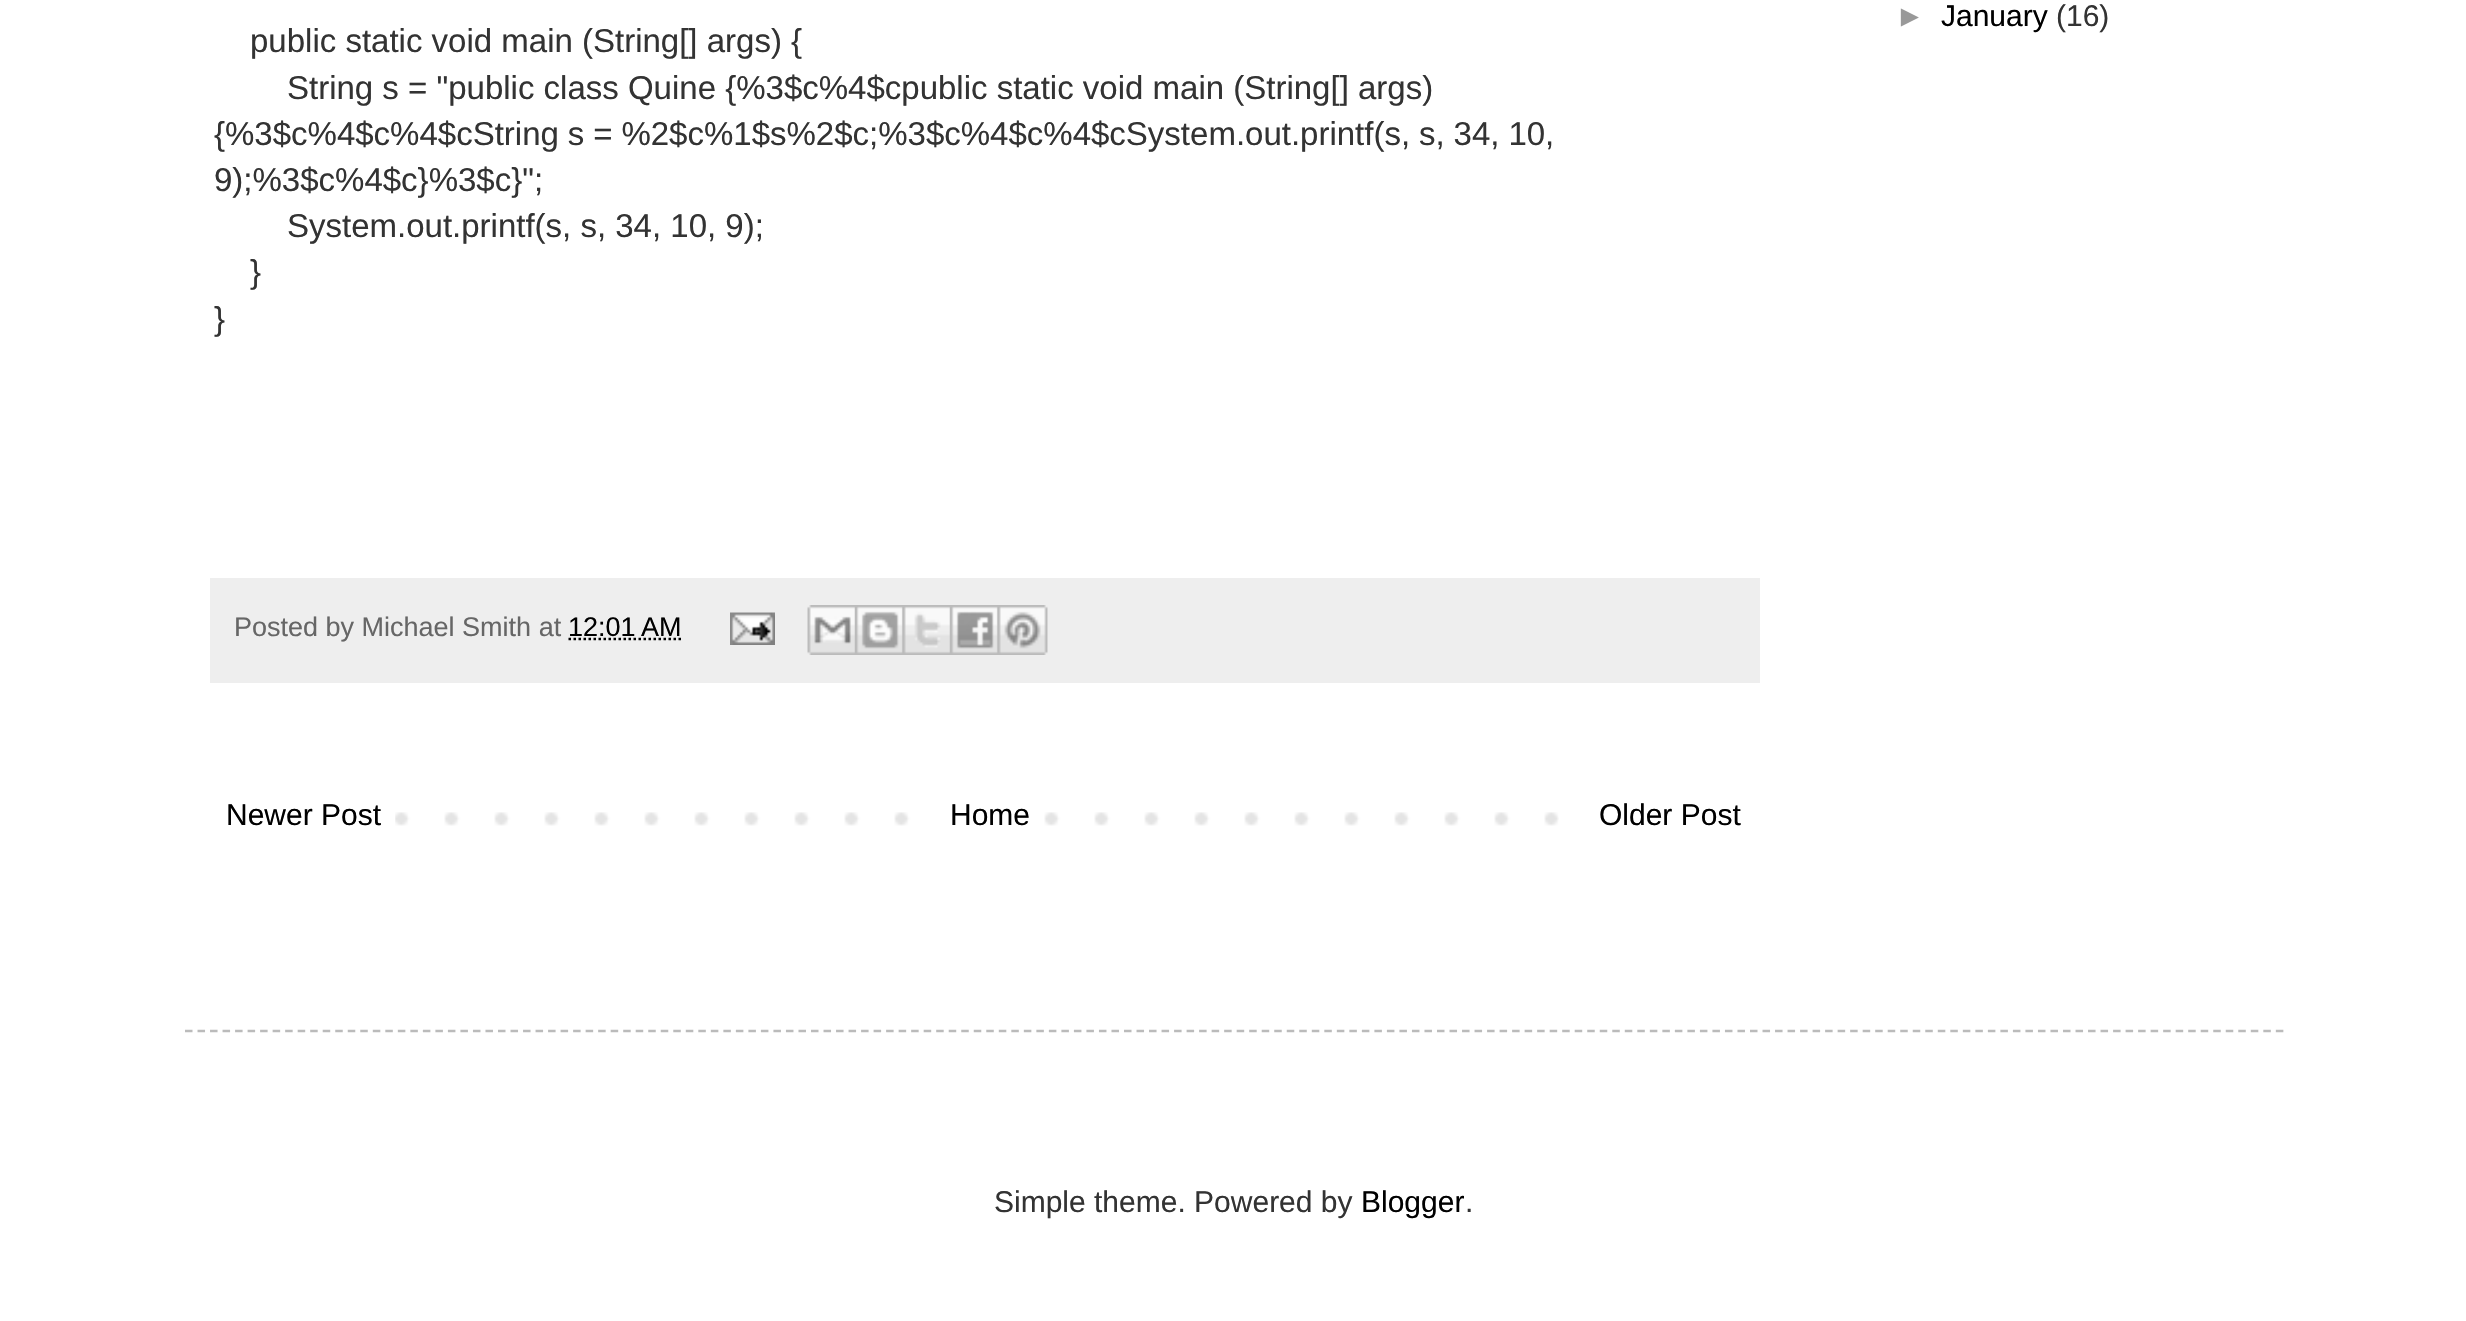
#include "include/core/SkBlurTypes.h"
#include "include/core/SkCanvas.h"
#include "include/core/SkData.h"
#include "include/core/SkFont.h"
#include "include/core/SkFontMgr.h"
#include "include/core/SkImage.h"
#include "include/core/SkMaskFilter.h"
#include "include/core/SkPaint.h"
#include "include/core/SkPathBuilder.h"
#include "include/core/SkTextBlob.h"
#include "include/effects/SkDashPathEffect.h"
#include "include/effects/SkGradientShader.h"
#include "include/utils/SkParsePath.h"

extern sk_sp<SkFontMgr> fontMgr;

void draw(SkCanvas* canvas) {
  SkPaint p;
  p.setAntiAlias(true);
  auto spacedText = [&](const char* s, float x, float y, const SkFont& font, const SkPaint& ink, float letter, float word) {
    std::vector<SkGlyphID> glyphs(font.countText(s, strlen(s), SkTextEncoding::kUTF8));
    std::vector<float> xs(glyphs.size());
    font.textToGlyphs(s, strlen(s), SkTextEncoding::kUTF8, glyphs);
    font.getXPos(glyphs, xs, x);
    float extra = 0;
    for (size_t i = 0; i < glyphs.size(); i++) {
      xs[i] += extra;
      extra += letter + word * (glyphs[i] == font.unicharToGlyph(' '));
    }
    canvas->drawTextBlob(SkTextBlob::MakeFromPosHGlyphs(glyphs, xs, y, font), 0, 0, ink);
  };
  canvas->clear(SK_ColorWHITE);
  p.setColor(SkColorSetRGB(238, 238, 238));
  canvas->drawRect(SkRect::MakeLTRB(210, 578, 1760, 683), p);
  p.setStyle(SkPaint::kStroke_Style);
  p.setStrokeWidth(2.5f);
  p.setColor(SK_ColorBLACK);
  p.setPathEffect(SkDashPathEffect::Make({{2.5f, 2.5f}}, 0));
  canvas->drawPath(SkPathBuilder().moveTo(568.5f, 639).lineTo(682, 639).detach(), p);
  p.setPathEffect(nullptr);
  canvas->drawImageRect(SkImages::DeferredFromEncodedData(SkData::MakeFromFileName("images/1.png")), SkRect::MakeLTRB(730, 612, 775, 645), SkSamplingOptions());
  canvas->drawImageRect(SkImages::DeferredFromEncodedData(SkData::MakeFromFileName("images/2.png")), SkRect::MakeLTRB(807, 605, 855, 655), SkSamplingOptions());
  canvas->drawImageRect(SkImages::DeferredFromEncodedData(SkData::MakeFromFileName("images/3.png")), SkRect::MakeLTRB(855, 605, 903, 655), SkSamplingOptions());
  canvas->drawImageRect(SkImages::DeferredFromEncodedData(SkData::MakeFromFileName("images/4.png")), SkRect::MakeLTRB(902, 605, 950, 655), SkSamplingOptions());
  canvas->drawImageRect(SkImages::DeferredFromEncodedData(SkData::MakeFromFileName("images/5.png")), SkRect::MakeLTRB(950, 605, 998, 655), SkSamplingOptions());
  canvas->drawImageRect(SkImages::DeferredFromEncodedData(SkData::MakeFromFileName("images/6.png")), SkRect::MakeLTRB(997, 605, 1048, 655), SkSamplingOptions());
  canvas->drawImageRect(SkImages::DeferredFromEncodedData(SkData::MakeFromFileName("images/7.png")), SkRect::MakeLTRB(395, 812, 1559, 826), SkSamplingOptions());
  p.setStyle(SkPaint::kFill_Style);
  p.setColor(SK_ColorWHITE);
  canvas->drawRect(SkRect::MakeLTRB(944, 812, 1010, 826), p);
  p.setStyle(SkPaint::kStroke_Style);
  p.setColor(SkColorSetRGB(187, 187, 187));
  p.setPathEffect(SkDashPathEffect::Make({{7.5f, 5.02f}}, 0));
  canvas->drawPath(SkPathBuilder().moveTo(185, 1031).lineTo(2285, 1031).detach(), p);
  p.setPathEffect(nullptr);
  SkFont font1(fontMgr->matchFamilyStyle("Liberation Sans", SkFontStyle::Normal()), 30);
  font1.setSubpixel(true);
  p.setStyle(SkPaint::kFill_Style);
  p.setColor(SkColorSetRGB(153, 153, 153));
  canvas->drawString("►", 1895, 26, font1, p);
  p.setColor(SK_ColorBLACK);
  canvas->drawString("January", 1941, 26, font1, p);
  p.setColor(SkColorSetRGB(51, 51, 51));
  canvas->drawString("(16)", 2056, 26, font1, p);
  SkFont font2(fontMgr->matchFamilyStyle("Liberation Sans", SkFontStyle::Normal()), 33);
  font2.setSubpixel(true);
  canvas->drawString("public static void main (String[] args) {", 250, 52, font2, p);
  canvas->drawString("String s = \"public class Quine {%3$c%4$cpublic static void main (String[] args)", 287, 99, font2, p);
  spacedText("{%3$c%4$c%4$cString s = %2$c%1$s%2$c;%3$c%4$c%4$cSystem.out.printf(s, s, 34, 10,", 214, 145, font2, p, 0, -0.25f);
  canvas->drawString("9);%3$c%4$c}%3$c}\";", 214, 191, font2, p);
  canvas->drawString("System.out.printf(s, s, 34, 10, 9);", 287, 237, font2, p);
  canvas->drawString("}", 250, 283, font2, p);
  canvas->drawString("}", 214, 330, font2, p);
  SkFont font3(fontMgr->matchFamilyStyle("Liberation Sans", SkFontStyle::Normal()), 27);
  font3.setSubpixel(true);
  p.setColor(SkColorSetRGB(102, 102, 102));
  canvas->drawString("Posted by Michael Smith at", 234, 636, font3, p);
  p.setColor(SK_ColorBLACK);
  canvas->drawString("12:01 AM", 568, 636, font3, p);
  canvas->drawString("Newer Post", 226, 825, font1, p);
  canvas->drawString("Home", 950, 825, font1, p);
  canvas->drawString("Older Post", 1599, 825, font1, p);
  p.setColor(SkColorSetRGB(51, 51, 51));
  canvas->drawString("Simple theme. Powered by", 994, 1212, font1, p);
  p.setColor(SK_ColorBLACK);
  canvas->drawString("Blogger", 1361, 1212, font1, p);
  p.setColor(SkColorSetRGB(51, 51, 51));
  canvas->drawString(".", 1465, 1212, font1, p);
}
